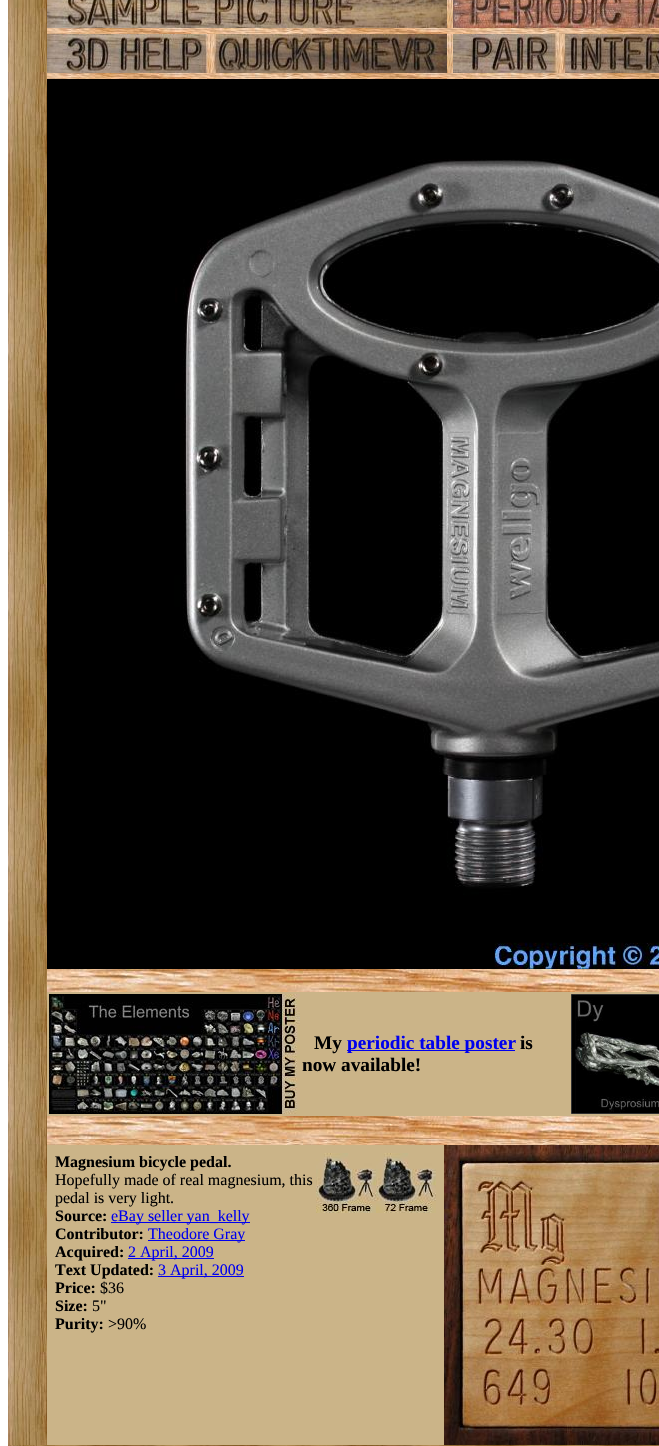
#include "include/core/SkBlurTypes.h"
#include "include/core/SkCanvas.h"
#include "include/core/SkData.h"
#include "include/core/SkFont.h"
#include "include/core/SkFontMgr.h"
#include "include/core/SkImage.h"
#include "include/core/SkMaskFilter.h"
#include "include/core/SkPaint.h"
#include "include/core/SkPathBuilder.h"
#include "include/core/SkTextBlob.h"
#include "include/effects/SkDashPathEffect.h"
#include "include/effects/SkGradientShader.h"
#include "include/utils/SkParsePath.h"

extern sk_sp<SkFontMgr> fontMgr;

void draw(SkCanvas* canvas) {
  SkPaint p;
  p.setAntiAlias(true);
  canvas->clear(SK_ColorWHITE);
  canvas->drawImageRect(SkImages::DeferredFromEncodedData(SkData::MakeFromFileName("images/1.png")), SkRect::MakeLTRB(8, 0, 47, 1445), SkSamplingOptions());
  p.setColor(SkColorSetRGB(203, 180, 136));
  canvas->drawRect(SkRect::MakeLTRB(47, 992, 659, 1445), p);
  canvas->drawImageRect(SkImages::DeferredFromEncodedData(SkData::MakeFromFileName("images/2.png")), SkRect::MakeLTRB(47, 0, 447, 28), SkSamplingOptions());
  canvas->drawImageRect(SkImages::DeferredFromEncodedData(SkData::MakeFromFileName("images/3.png")), SkRect::MakeLTRB(447, 0, 453, 28), SkSamplingOptions());
  canvas->drawImageRect(SkImages::DeferredFromEncodedData(SkData::MakeFromFileName("images/4.png")), SkRect::MakeLTRB(453, 0, 659, 28), SkSamplingOptions());
  canvas->drawImageRect(SkImages::DeferredFromEncodedData(SkData::MakeFromFileName("images/5.png")), SkRect::MakeLTRB(47, 28, 659, 34), SkSamplingOptions());
  canvas->drawImageRect(SkImages::DeferredFromEncodedData(SkData::MakeFromFileName("images/6.png")), SkRect::MakeLTRB(47, 34, 447, 73), SkSamplingOptions());
  canvas->drawImageRect(SkImages::DeferredFromEncodedData(SkData::MakeFromFileName("images/7.png")), SkRect::MakeLTRB(447, 34, 453, 73), SkSamplingOptions());
  canvas->drawImageRect(SkImages::DeferredFromEncodedData(SkData::MakeFromFileName("images/8.png")), SkRect::MakeLTRB(453, 34, 659, 73), SkSamplingOptions());
  canvas->drawImageRect(SkImages::DeferredFromEncodedData(SkData::MakeFromFileName("images/5.png")), SkRect::MakeLTRB(47, 73, 659, 79), SkSamplingOptions());
  canvas->drawImageRect(SkImages::DeferredFromEncodedData(SkData::MakeFromFileName("images/9.png")), SkRect::MakeLTRB(47, 79, 659, 969), SkSamplingOptions());
  canvas->drawImageRect(SkImages::DeferredFromEncodedData(SkData::MakeFromFileName("images/10.png")), SkRect::MakeLTRB(47, 969, 659, 992), SkSamplingOptions());
  canvas->drawImageRect(SkImages::DeferredFromEncodedData(SkData::MakeFromFileName("images/11.png")), SkRect::MakeLTRB(49, 994, 300, 1114), SkSamplingOptions());
  p.setColor(SkColorSetRGB(0, 0, 238));
  canvas->drawRect(SkRect::MakeLTRB(347, 1050, 515, 1051), p);
  canvas->drawImageRect(SkImages::DeferredFromEncodedData(SkData::MakeFromFileName("images/12.png")), SkRect::MakeLTRB(571, 994, 659, 1114), SkSamplingOptions());
  canvas->drawImageRect(SkImages::DeferredFromEncodedData(SkData::MakeFromFileName("images/10.png")), SkRect::MakeLTRB(47, 1116, 659, 1139), SkSamplingOptions());
  canvas->drawImageRect(SkImages::DeferredFromEncodedData(SkData::MakeFromFileName("images/5.png")), SkRect::MakeLTRB(47, 1139, 659, 1145), SkSamplingOptions());
  canvas->drawImageRect(SkImages::DeferredFromEncodedData(SkData::MakeFromFileName("images/13.png")), SkRect::MakeLTRB(316, 1153, 376, 1213), SkSamplingOptions());
  canvas->drawImageRect(SkImages::DeferredFromEncodedData(SkData::MakeFromFileName("images/14.png")), SkRect::MakeLTRB(376, 1153, 436, 1213), SkSamplingOptions());
  canvas->drawRect(SkRect::MakeLTRB(111, 1222, 250, 1223), p);
  canvas->drawRect(SkRect::MakeLTRB(148, 1240, 245, 1241), p);
  canvas->drawRect(SkRect::MakeLTRB(128, 1258, 214, 1259), p);
  canvas->drawRect(SkRect::MakeLTRB(158, 1276, 244, 1277), p);
  canvas->drawImageRect(SkImages::DeferredFromEncodedData(SkData::MakeFromFileName("images/15.png")), SkRect::MakeLTRB(444, 1145, 659, 1445), SkSamplingOptions());
  canvas->drawImageRect(SkImages::DeferredFromEncodedData(SkData::MakeFromFileName("images/16.png")), SkRect::MakeLTRB(8, 1445, 47, 1446), SkSamplingOptions());
  canvas->drawImageRect(SkImages::DeferredFromEncodedData(SkData::MakeFromFileName("images/17.png")), SkRect::MakeLTRB(47, 1445, 659, 1446), SkSamplingOptions());
  SkFont font1(fontMgr->matchFamilyStyle("Liberation Serif", SkFontStyle::Bold()), 19.25f);
  font1.setSubpixel(true);
  p.setColor(SK_ColorBLACK);
  canvas->drawString("My", 314, 1049, font1, p);
  p.setColor(SkColorSetRGB(0, 0, 238));
  canvas->drawString("periodic table poster", 347, 1049, font1, p);
  p.setColor(SK_ColorBLACK);
  canvas->drawString("is", 520, 1049, font1, p);
  canvas->drawString("now available!", 302, 1071, font1, p);
  SkFont font2(fontMgr->matchFamilyStyle("Liberation Serif", SkFontStyle::Bold()), 16);
  font2.setSubpixel(true);
  canvas->drawString("Magnesium bicycle pedal.", 55, 1167, font2, p);
  SkFont font3(fontMgr->matchFamilyStyle("Liberation Serif", SkFontStyle::Normal()), 16);
  font3.setSubpixel(true);
  canvas->drawString("Hopefully made of real magnesium, this", 55, 1185, font3, p);
  canvas->drawString("pedal is very light.", 55, 1203, font3, p);
  canvas->drawString("Source:", 55, 1221, font2, p);
  p.setColor(SkColorSetRGB(0, 0, 238));
  canvas->drawString("eBay seller yan_kelly", 111, 1221, font3, p);
  p.setColor(SK_ColorBLACK);
  canvas->drawString("Contributor:", 55, 1239, font2, p);
  p.setColor(SkColorSetRGB(0, 0, 238));
  canvas->drawString("Theodore Gray", 148, 1239, font3, p);
  p.setColor(SK_ColorBLACK);
  canvas->drawString("Acquired:", 55, 1257, font2, p);
  p.setColor(SkColorSetRGB(0, 0, 238));
  canvas->drawString("2 April, 2009", 128, 1257, font3, p);
  p.setColor(SK_ColorBLACK);
  canvas->drawString("Text Updated:", 55, 1275, font2, p);
  p.setColor(SkColorSetRGB(0, 0, 238));
  canvas->drawString("3 April, 2009", 158, 1275, font3, p);
  p.setColor(SK_ColorBLACK);
  canvas->drawString("Price:", 55, 1293, font2, p);
  canvas->drawString("$36", 100, 1293, font3, p);
  canvas->drawString("Size:", 55, 1311, font2, p);
  canvas->drawString("5\"", 92, 1311, font3, p);
  canvas->drawString("Purity:", 55, 1329, font2, p);
  canvas->drawString(">90%", 108, 1329, font3, p);
}
